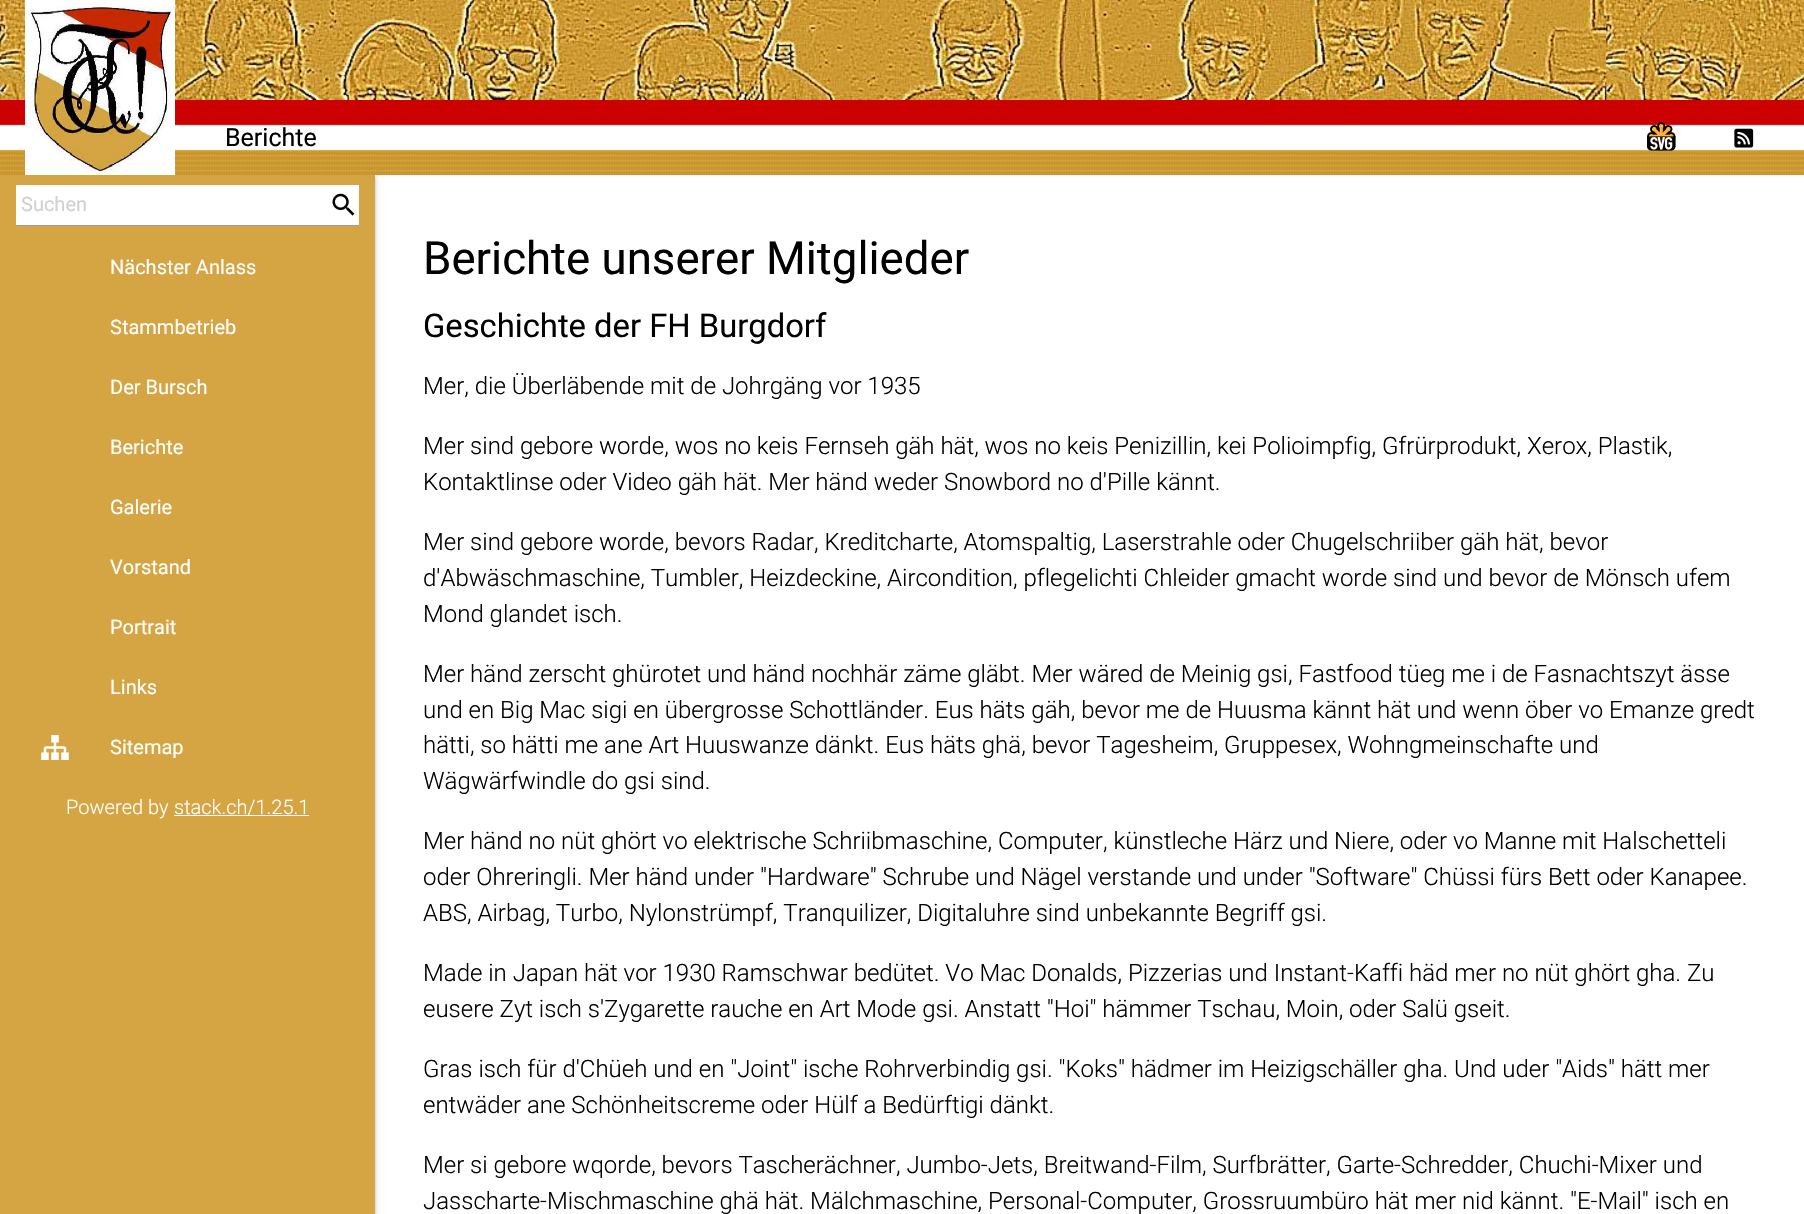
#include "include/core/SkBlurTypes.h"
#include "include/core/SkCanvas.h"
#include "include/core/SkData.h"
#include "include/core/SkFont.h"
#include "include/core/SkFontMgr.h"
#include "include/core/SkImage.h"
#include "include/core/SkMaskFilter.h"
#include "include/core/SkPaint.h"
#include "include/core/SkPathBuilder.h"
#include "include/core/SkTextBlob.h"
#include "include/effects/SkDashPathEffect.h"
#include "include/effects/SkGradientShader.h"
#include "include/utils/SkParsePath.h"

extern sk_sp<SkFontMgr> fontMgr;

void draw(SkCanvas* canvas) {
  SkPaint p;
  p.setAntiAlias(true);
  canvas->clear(SK_ColorWHITE);
  canvas->drawImageRect(SkImages::DeferredFromEncodedData(SkData::MakeFromFileName("images/1.png")), SkRect::MakeLTRB(0, 0, 1804, 100), SkSamplingOptions());
  p.setColor(SkColorSetARGB(51, 0, 0, 0));
  p.setMaskFilter(SkMaskFilter::MakeBlur(kNormal_SkBlurStyle, 3));
  canvas->drawRect(SkRect::MakeLTRB(0, 176, 375, 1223), p);
  p.setMaskFilter(nullptr);
  p.setColor(SkColorSetARGB(36, 0, 0, 0));
  p.setMaskFilter(SkMaskFilter::MakeBlur(kNormal_SkBlurStyle, 1));
  canvas->drawRect(SkRect::MakeLTRB(0, 178, 375, 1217), p);
  p.setMaskFilter(nullptr);
  canvas->drawImageRect(SkImages::DeferredFromEncodedData(SkData::MakeFromFileName("images/3.png")), SkRect::MakeLTRB(0, 100, 1804, 175), SkSamplingOptions());
  canvas->drawImageRect(SkImages::DeferredFromEncodedData(SkData::MakeFromFileName("images/2.png")), SkRect::MakeLTRB(25, 0, 175, 175), SkSamplingOptions());
  canvas->drawImageRect(SkImages::DeferredFromEncodedData(SkData::MakeFromFileName("images/4.png")), SkRect::MakeLTRB(1647, 122, 1676, 151), SkSamplingOptions());
  canvas->drawImageRect(SkImages::DeferredFromEncodedData(SkData::MakeFromFileName("images/5.png")), SkRect::MakeLTRB(1734, 128, 1754, 148), SkSamplingOptions());
  p.setColor(SkColorSetRGB(213, 165, 67));
  canvas->drawRect(SkRect::MakeLTRB(0, 175, 375, 1214), p);
  p.setColor(SK_ColorWHITE);
  canvas->drawRect(SkRect::MakeLTRB(16, 185, 359, 225), p);
  canvas->drawImageRect(SkImages::DeferredFromEncodedData(SkData::MakeFromFileName("images/6.png")), SkRect::MakeLTRB(332, 193, 355, 216), SkSamplingOptions());
  p.setColor(SkColorSetRGB(158, 158, 158));
  canvas->drawRect(SkRect::MakeLTRB(16, 225, 359, 226), p);
  canvas->drawImageRect(SkImages::DeferredFromEncodedData(SkData::MakeFromFileName("images/7.png")), SkRect::MakeLTRB(41, 735, 69, 760), SkSamplingOptions());
  p.setColor(SK_ColorWHITE);
  canvas->drawRect(SkRect::MakeLTRB(174, 815, 309, 816), p);
  SkFont font1(fontMgr->matchFamilyStyle("Roboto", SkFontStyle::Normal()), 25);
  font1.setSubpixel(true);
  p.setColor(SK_ColorBLACK);
  canvas->drawString("Berichte", 225, 146, font1, p);
  SkFont font2(fontMgr->matchFamilyStyle("Roboto", SkFontStyle::Normal()), 20);
  font2.setSubpixel(true);
  p.setColor(SkColorSetRGB(209, 209, 209));
  canvas->drawString("Suchen", 21, 211, font2, p);
  p.setColor(SK_ColorWHITE);
  canvas->drawString("Nächster Anlass", 110, 274, font2, p);
  canvas->drawString("Stammbetrieb", 110, 334, font2, p);
  canvas->drawString("Der Bursch", 110, 394, font2, p);
  canvas->drawString("Berichte", 110, 454, font2, p);
  canvas->drawString("Galerie", 110, 514, font2, p);
  canvas->drawString("Vorstand", 110, 574, font2, p);
  canvas->drawString("Portrait", 110, 634, font2, p);
  canvas->drawString("Links", 110, 694, font2, p);
  canvas->drawString("Sitemap", 110, 754, font2, p);
  SkFont font3(fontMgr->matchFamilyStyle("Roboto", SkFontStyle(300, SkFontStyle::kNormal_Width, SkFontStyle::kUpright_Slant)), 20);
  font3.setSubpixel(true);
  canvas->drawString("Powered by", 66, 814, font3, p);
  canvas->drawString("stack.ch/1.25.1", 174, 814, font3, p);
  SkFont font4(fontMgr->matchFamilyStyle("Roboto", SkFontStyle::Normal()), 45.6f);
  font4.setSubpixel(true);
  p.setColor(SK_ColorBLACK);
  canvas->drawString("Berichte unserer Mitglieder", 423, 274, font4, p);
  SkFont font5(fontMgr->matchFamilyStyle("Roboto", SkFontStyle::Normal()), 32.75f);
  font5.setSubpixel(true);
  canvas->drawString("Geschichte der FH Burgdorf", 423, 337, font5, p);
  SkFont font6(fontMgr->matchFamilyStyle("Roboto", SkFontStyle(300, SkFontStyle::kNormal_Width, SkFontStyle::kUpright_Slant)), 24);
  font6.setSubpixel(true);
  canvas->drawString("Mer, die Überläbende mit de Johrgäng vor 1935", 423, 394, font6, p);
  canvas->drawString("Mer sind gebore worde, wos no keis Fernseh gäh hät, wos no keis Penizillin, kei Polioimpfig, Gfrürprodukt, Xerox, Plastik,", 423, 454, font6, p);
  canvas->drawString("Kontaktlinse oder Video gäh hät. Mer händ weder Snowbord no d'Pille kännt.", 423, 490, font6, p);
  canvas->drawString("Mer sind gebore worde, bevors Radar, Kreditcharte, Atomspaltig, Laserstrahle oder Chugelschriiber gäh hät, bevor", 423, 550, font6, p);
  canvas->drawString("d'Abwäschmaschine, Tumbler, Heizdeckine, Aircondition, pflegelichti Chleider gmacht worde sind und bevor de Mönsch ufem", 423, 586, font6, p);
  canvas->drawString("Mond glandet isch.", 423, 622, font6, p);
  canvas->drawString("Mer händ zerscht ghürotet und händ nochhär zäme gläbt. Mer wäred de Meinig gsi, Fastfood tüeg me i de Fasnachtszyt ässe", 423, 682, font6, p);
  canvas->drawString("und en Big Mac sigi en übergrosse Schottländer. Eus häts gäh, bevor me de Huusma kännt hät und wenn öber vo Emanze gredt", 423, 718, font6, p);
  canvas->drawString("hätti, so hätti me ane Art Huuswanze dänkt. Eus häts ghä, bevor Tagesheim, Gruppesex, Wohngmeinschafte und", 423, 753, font6, p);
  canvas->drawString("Wägwärfwindle do gsi sind.", 423, 789, font6, p);
  canvas->drawString("Mer händ no nüt ghört vo elektrische Schriibmaschine, Computer, künstleche Härz und Niere, oder vo Manne mit Halschetteli", 423, 849, font6, p);
  canvas->drawString("oder Ohreringli. Mer händ under \"Hardware\" Schrube und Nägel verstande und under \"Software\" Chüssi fürs Bett oder Kanapee.", 423, 885, font6, p);
  canvas->drawString("ABS, Airbag, Turbo, Nylonstrümpf, Tranquilizer, Digitaluhre sind unbekannte Begriff gsi.", 423, 921, font6, p);
  canvas->drawString("Made in Japan hät vor 1930 Ramschwar bedütet. Vo Mac Donalds, Pizzerias und Instant-Kaffi häd mer no nüt ghört gha. Zu", 423, 981, font6, p);
  canvas->drawString("eusere Zyt isch s'Zygarette rauche en Art Mode gsi. Anstatt \"Hoi\" hämmer Tschau, Moin, oder Salü gseit.", 423, 1017, font6, p);
  canvas->drawString("Gras isch für d'Chüeh und en \"Joint\" ische Rohrverbindig gsi. \"Koks\" hädmer im Heizigschäller gha. Und uder \"Aids\" hätt mer", 423, 1077, font6, p);
  canvas->drawString("entwäder ane Schönheitscreme oder Hülf a Bedürftigi dänkt.", 423, 1113, font6, p);
  canvas->drawString("Mer si gebore wqorde, bevors Tascherächner, Jumbo-Jets, Breitwand-Film, Surfbrätter, Garte-Schredder, Chuchi-Mixer und", 423, 1173, font6, p);
  canvas->drawString("Jasscharte-Mischmaschine ghä hät. Mälchmaschine, Personal-Computer, Grossruumbüro hät mer nid kännt. \"E-Mail\" isch en", 423, 1209, font6, p);
}
